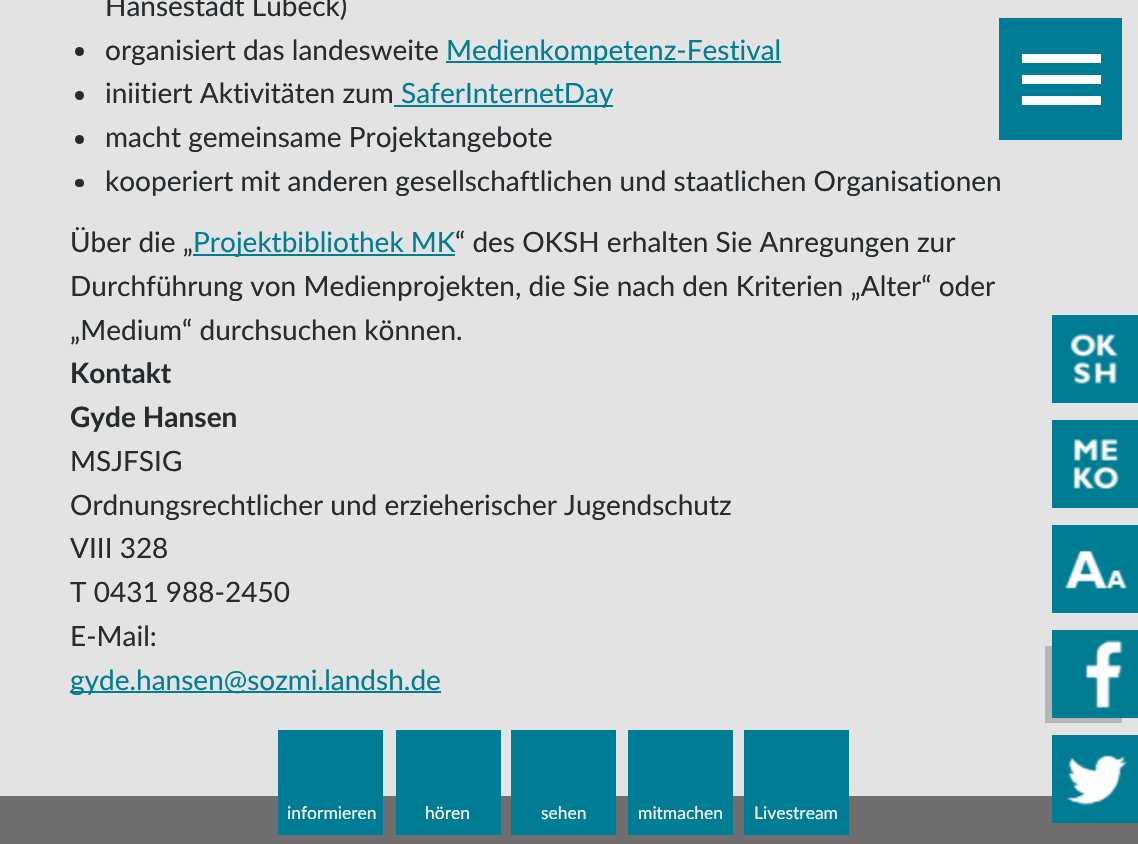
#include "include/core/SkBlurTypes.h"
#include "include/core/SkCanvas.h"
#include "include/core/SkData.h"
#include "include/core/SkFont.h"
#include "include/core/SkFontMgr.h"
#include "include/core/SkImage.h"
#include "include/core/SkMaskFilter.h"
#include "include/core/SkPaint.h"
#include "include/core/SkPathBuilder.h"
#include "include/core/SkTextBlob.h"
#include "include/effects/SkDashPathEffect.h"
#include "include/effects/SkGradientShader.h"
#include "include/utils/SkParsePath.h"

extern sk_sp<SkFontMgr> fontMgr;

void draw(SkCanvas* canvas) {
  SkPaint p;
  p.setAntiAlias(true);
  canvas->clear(SkColorSetRGB(227, 227, 227));
  p.setColor(SkColorSetRGB(38, 43, 46));
  canvas->drawCircle(79.5f, 51.5f, 4.5f, p);
  p.setColor(SkColorSetRGB(0, 124, 147));
  canvas->drawRect(SkRect::MakeLTRB(446, 61, 781, 63), p);
  p.setColor(SkColorSetRGB(38, 43, 46));
  canvas->drawCircle(79.5f, 95.5f, 4.5f, p);
  p.setColor(SkColorSetRGB(0, 124, 147));
  canvas->drawRect(SkRect::MakeLTRB(394, 105, 613, 107), p);
  p.setColor(SkColorSetRGB(38, 43, 46));
  canvas->drawCircle(79.5f, 139.5f, 4.5f, p);
  canvas->drawRoundRect(SkRect::MakeLTRB(75, 179, 84, 187), 4, 4, p);
  p.setColor(SkColorSetRGB(0, 124, 147));
  canvas->drawRect(SkRect::MakeLTRB(193, 254, 455, 256), p);
  canvas->drawRect(SkRect::MakeLTRB(70, 691, 441, 693), p);
  p.setColor(SkColorSetRGB(0, 124, 148));
  canvas->drawRect(SkRect::MakeLTRB(999, 18, 1122, 140), p);
  p.setColor(SK_ColorWHITE);
  canvas->drawRect(SkRect::MakeLTRB(1022, 75, 1101, 84), p);
  canvas->drawRect(SkRect::MakeLTRB(1022, 54, 1101, 63), p);
  canvas->drawRect(SkRect::MakeLTRB(1022, 96, 1101, 105), p);
  p.setColor(SkColorSetRGB(182, 182, 182));
  canvas->drawRect(SkRect::MakeLTRB(1045, 646, 1122, 723), p);
  p.setColor(SkColorSetRGB(112, 110, 111));
  canvas->drawRect(SkRect::MakeLTRB(0, 796, 1138, 844), p);
  p.setColor(SkColorSetRGB(0, 124, 147));
  canvas->drawRect(SkRect::MakeLTRB(1052, 315, 1138, 403), p);
  canvas->drawImageRect(SkImages::DeferredFromEncodedData(SkData::MakeFromFileName("images/1.png")), SkRect::MakeLTRB(1070, 333, 1119, 384), SkSamplingOptions());
  canvas->drawRect(SkRect::MakeLTRB(1052, 420, 1138, 508), p);
  canvas->drawImageRect(SkImages::DeferredFromEncodedData(SkData::MakeFromFileName("images/2.png")), SkRect::MakeLTRB(1072, 438, 1119, 490), SkSamplingOptions());
  canvas->drawRect(SkRect::MakeLTRB(1052, 525, 1138, 613), p);
  canvas->drawImageRect(SkImages::DeferredFromEncodedData(SkData::MakeFromFileName("images/3.png")), SkRect::MakeLTRB(1064, 550, 1128, 589), SkSamplingOptions());
  canvas->drawRect(SkRect::MakeLTRB(1052, 630, 1138, 718), p);
  canvas->drawImageRect(SkImages::DeferredFromEncodedData(SkData::MakeFromFileName("images/4.png")), SkRect::MakeLTRB(1085, 640, 1123, 709), SkSamplingOptions());
  p.setColor(SkColorSetRGB(0, 124, 148));
  canvas->drawRect(SkRect::MakeLTRB(1052, 735, 1138, 823), p);
  canvas->drawImageRect(SkImages::DeferredFromEncodedData(SkData::MakeFromFileName("images/5.png")), SkRect::MakeLTRB(1066, 755, 1128, 806), SkSamplingOptions());
  canvas->drawRect(SkRect::MakeLTRB(278, 730, 383, 835), p);
  canvas->drawRect(SkRect::MakeLTRB(396, 730, 501, 835), p);
  canvas->drawRect(SkRect::MakeLTRB(511, 730, 616, 835), p);
  canvas->drawRect(SkRect::MakeLTRB(628, 730, 733, 835), p);
  canvas->drawRect(SkRect::MakeLTRB(744, 730, 849, 835), p);
  SkFont font1(fontMgr->matchFamilyStyle("Lato", SkFontStyle::Normal()), 28);
  font1.setSubpixel(true);
  p.setColor(SkColorSetRGB(38, 43, 46));
  canvas->drawString("Hansestadt Lübeck)", 105, 16, font1, p);
  canvas->drawString("organisiert das landesweite", 105, 60, font1, p);
  p.setColor(SkColorSetRGB(0, 124, 147));
  canvas->drawString("Medienkompetenz-Festival", 446, 60, font1, p);
  p.setColor(SkColorSetRGB(38, 43, 46));
  canvas->drawString("iniitiert Aktivitäten zum", 105, 103, font1, p);
  p.setColor(SkColorSetRGB(0, 124, 147));
  canvas->drawString("SaferInternetDay", 401, 103, font1, p);
  p.setColor(SkColorSetRGB(38, 43, 46));
  canvas->drawString("macht gemeinsame Projektangebote", 105, 147, font1, p);
  canvas->drawString("kooperiert mit anderen gesellschaftlichen und staatlichen Organisationen", 105, 191, font1, p);
  canvas->drawString("Über die „", 70, 252, font1, p);
  p.setColor(SkColorSetRGB(0, 124, 147));
  canvas->drawString("Projektbibliothek MK", 193, 252, font1, p);
  p.setColor(SkColorSetRGB(38, 43, 46));
  canvas->drawString("“ des OKSH erhalten Sie Anregungen zur", 455, 252, font1, p);
  canvas->drawString("Durchführung von Medienprojekten, die Sie nach den Kriterien „Alter“ oder", 70, 296, font1, p);
  canvas->drawString("„Medium“ durchsuchen können.", 70, 340, font1, p);
  SkFont font2(fontMgr->matchFamilyStyle("Lato", SkFontStyle::Bold()), 28);
  font2.setSubpixel(true);
  canvas->drawString("Kontakt", 70, 383, font2, p);
  canvas->drawString("Gyde Hansen", 70, 427, font2, p);
  canvas->drawString("MSJFSIG", 70, 471, font1, p);
  canvas->drawString("Ordnungsrechtlicher und erzieherischer Jugendschutz", 70, 515, font1, p);
  canvas->drawString("VIII 328", 70, 558, font1, p);
  canvas->drawString("T 0431 988-2450", 70, 602, font1, p);
  canvas->drawString("E-Mail:", 70, 646, font1, p);
  p.setColor(SkColorSetRGB(0, 124, 147));
  canvas->drawString("gyde.hansen@sozmi.landsh.de", 70, 690, font1, p);
  SkFont font3(fontMgr->matchFamilyStyle("Lato", SkFontStyle::Normal()), 17.5f);
  font3.setSubpixel(true);
  p.setColor(SK_ColorWHITE);
  canvas->drawString("informieren", 287, 819, font3, p);
  canvas->drawString("hören", 425, 819, font3, p);
  canvas->drawString("sehen", 541, 819, font3, p);
  canvas->drawString("mitmachen", 638, 819, font3, p);
  canvas->drawString("Livestream", 754, 819, font3, p);
}
